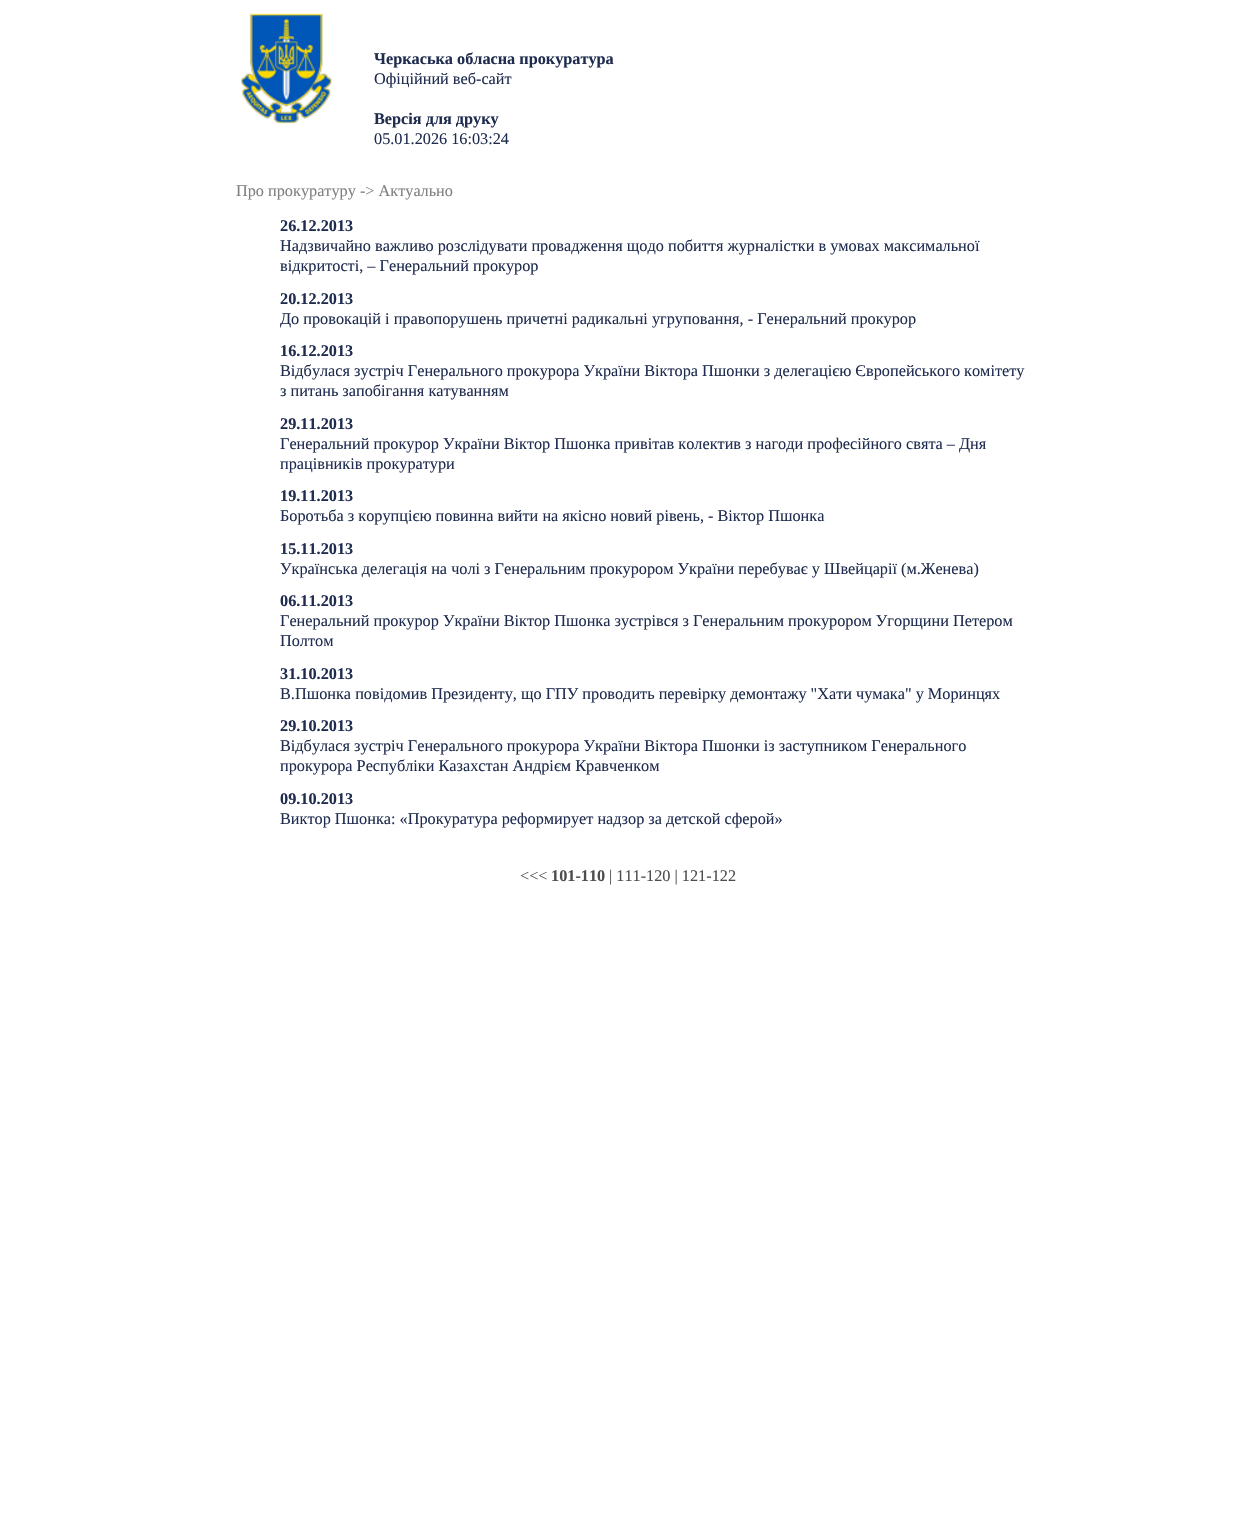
#include "include/core/SkBlurTypes.h"
#include "include/core/SkCanvas.h"
#include "include/core/SkData.h"
#include "include/core/SkFont.h"
#include "include/core/SkFontMgr.h"
#include "include/core/SkImage.h"
#include "include/core/SkMaskFilter.h"
#include "include/core/SkPaint.h"
#include "include/core/SkPathBuilder.h"
#include "include/core/SkTextBlob.h"
#include "include/effects/SkDashPathEffect.h"
#include "include/effects/SkGradientShader.h"
#include "include/utils/SkParsePath.h"

extern sk_sp<SkFontMgr> fontMgr;

void draw(SkCanvas* canvas) {
  SkPaint p;
  p.setAntiAlias(true);
  canvas->clear(SK_ColorWHITE);
  canvas->drawImageRect(SkImages::DeferredFromEncodedData(SkData::MakeFromFileName("images/1.png")), SkRect::MakeLTRB(241, 13, 332, 124), SkSamplingOptions());
  SkFont font1(fontMgr->matchFamilyStyle("Liberation Serif", SkFontStyle::Bold()), 16.25f);
  font1.setSubpixel(true);
  p.setColor(SkColorSetRGB(31, 44, 79));
  canvas->drawString("Черкаська обласна прокуратура", 374, 64, font1, p);
  SkFont font2(fontMgr->matchFamilyStyle("Liberation Serif", SkFontStyle::Normal()), 16.25f);
  font2.setSubpixel(true);
  canvas->drawString("Офіційний веб-сайт", 374, 84, font2, p);
  canvas->drawString("Версія для друку", 374, 124, font1, p);
  canvas->drawString("05.01.2026 16:03:24", 374, 144, font2, p);
  p.setColor(SkColorSetRGB(128, 128, 128));
  canvas->drawString("Про прокуратуру -> Актуально", 236, 196, font2, p);
  p.setColor(SkColorSetRGB(31, 44, 79));
  canvas->drawString("26.12.2013", 280, 231, font1, p);
  canvas->drawString("Надзвичайно важливо розслідувати провадження щодо побиття журналістки в умовах максимальної", 280, 251, font2, p);
  canvas->drawString("відкритості, – Генеральний прокурор", 280, 271, font2, p);
  canvas->drawString("20.12.2013", 280, 304, font1, p);
  canvas->drawString("До провокацій і правопорушень причетні радикальні угруповання, - Генеральний прокурор", 280, 324, font2, p);
  canvas->drawString("16.12.2013", 280, 356, font1, p);
  canvas->drawString("Відбулася зустріч Генерального прокурора України Віктора Пшонки з делегацією Європейського комітету", 280, 376, font2, p);
  canvas->drawString("з питань запобігання катуванням", 280, 396, font2, p);
  canvas->drawString("29.11.2013", 280, 429, font1, p);
  canvas->drawString("Генеральний прокурор України Віктор Пшонка привітав колектив з нагоди професійного свята – Дня", 280, 449, font2, p);
  canvas->drawString("працівників прокуратури", 280, 469, font2, p);
  canvas->drawString("19.11.2013", 280, 501, font1, p);
  canvas->drawString("Боротьба з корупцією повинна вийти на якісно новий рівень, - Віктор Пшонка", 280, 521, font2, p);
  canvas->drawString("15.11.2013", 280, 554, font1, p);
  canvas->drawString("Українська делегація на чолі з Генеральним прокурором України перебуває у Швейцарії (м.Женева)", 280, 574, font2, p);
  canvas->drawString("06.11.2013", 280, 606, font1, p);
  canvas->drawString("Генеральний прокурор України Віктор Пшонка зустрівся з Генеральним прокурором Угорщини Петером", 280, 626, font2, p);
  canvas->drawString("Полтом", 280, 646, font2, p);
  canvas->drawString("31.10.2013", 280, 679, font1, p);
  canvas->drawString("В.Пшонка повідомив Президенту, що ГПУ проводить перевірку демонтажу \"Хати чумака\" у Моринцях", 280, 699, font2, p);
  canvas->drawString("29.10.2013", 280, 731, font1, p);
  canvas->drawString("Відбулася зустріч Генерального прокурора України Віктора Пшонки із заступником Генерального", 280, 751, font2, p);
  canvas->drawString("прокурора Республіки Казахстан Андрієм Кравченком", 280, 771, font2, p);
  canvas->drawString("09.10.2013", 280, 804, font1, p);
  canvas->drawString("Виктор Пшонка: «Прокуратура реформирует надзор за детской сферой»", 280, 824, font2, p);
  p.setColor(SkColorSetRGB(77, 77, 77));
  canvas->drawString("<<<", 520, 881, font2, p);
  canvas->drawString("101-110", 551, 881, font1, p);
  canvas->drawString("| 111-120 | 121-122", 609, 881, font2, p);
}
